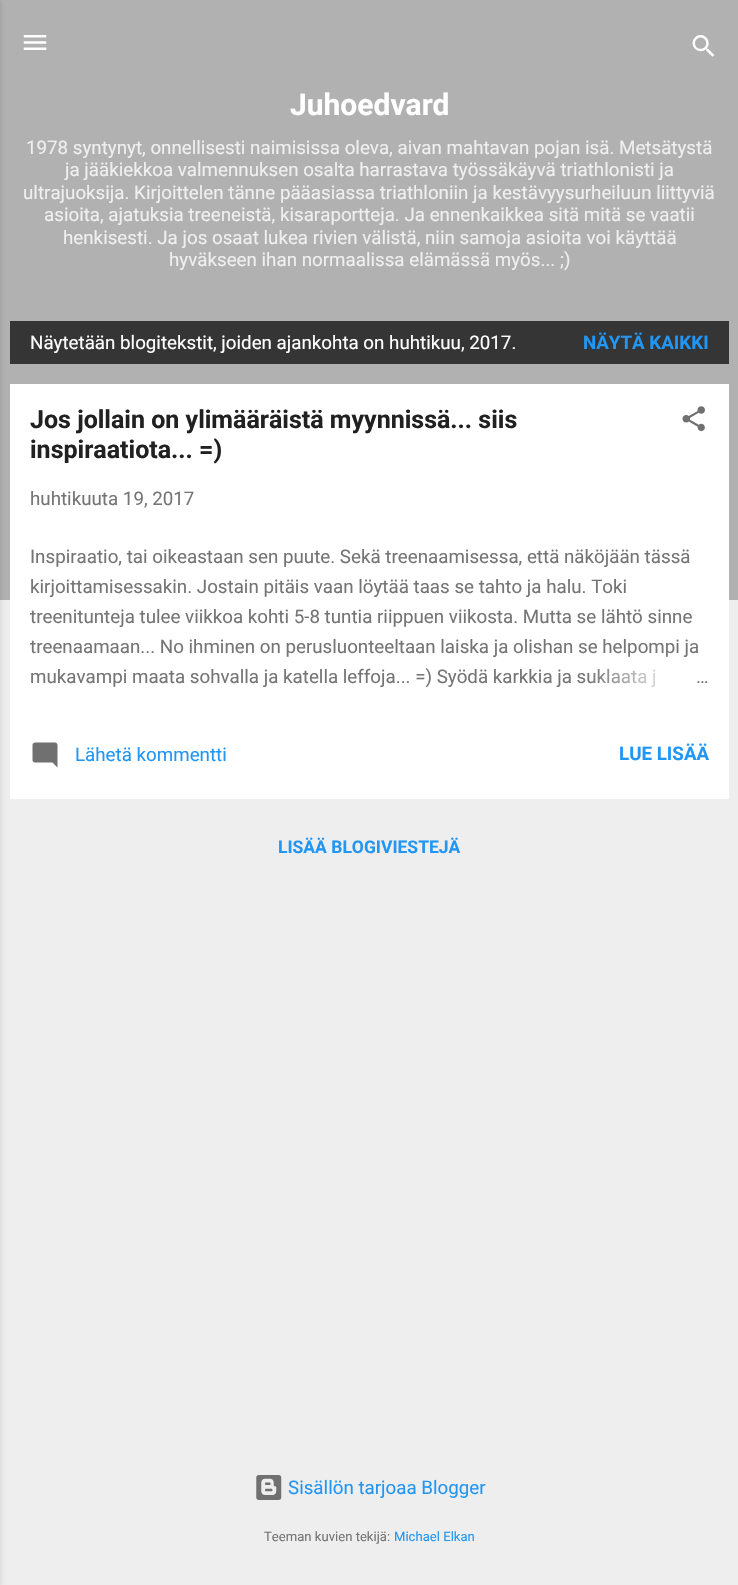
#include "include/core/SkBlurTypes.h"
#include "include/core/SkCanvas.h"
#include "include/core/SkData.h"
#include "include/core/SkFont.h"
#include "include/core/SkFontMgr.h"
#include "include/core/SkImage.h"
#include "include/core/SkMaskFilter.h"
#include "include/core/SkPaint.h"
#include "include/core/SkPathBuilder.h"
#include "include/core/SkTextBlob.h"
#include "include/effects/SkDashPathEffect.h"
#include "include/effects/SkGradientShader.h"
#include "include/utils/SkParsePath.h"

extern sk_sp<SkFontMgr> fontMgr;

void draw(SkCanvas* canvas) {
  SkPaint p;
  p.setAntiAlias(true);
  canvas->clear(SkColorSetRGB(238, 238, 238));
  p.setColor(SkColorSetRGB(177, 177, 177));
  canvas->drawRect(SkRect::MakeLTRB(0, 0, 738, 600), p);
  p.setColor(SkColorSetARGB(26, 0, 0, 0));
  p.setMaskFilter(SkMaskFilter::MakeBlur(kNormal_SkBlurStyle, 2));
  canvas->drawRect(SkRect::MakeLTRB(-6, 1, 1, 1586), p);
  p.setMaskFilter(nullptr);
  canvas->drawImageRect(SkImages::DeferredFromEncodedData(SkData::MakeFromFileName("images/1.png")), SkRect::MakeLTRB(23, 35, 47, 50), SkSamplingOptions());
  canvas->drawImageRect(SkImages::DeferredFromEncodedData(SkData::MakeFromFileName("images/2.png")), SkRect::MakeLTRB(692, 35, 715, 57), SkSamplingOptions());
  p.setColor(SkColorSetRGB(53, 53, 53));
  canvas->drawRect(SkRect::MakeLTRB(10, 321, 729, 364), p);
  p.setColor(SK_ColorWHITE);
  canvas->drawRect(SkRect::MakeLTRB(10, 384, 729, 799), p);
  canvas->drawImageRect(SkImages::DeferredFromEncodedData(SkData::MakeFromFileName("images/3.png")), SkRect::MakeLTRB(682, 406, 705, 432), SkSamplingOptions());
  canvas->drawImageRect(SkImages::DeferredFromEncodedData(SkData::MakeFromFileName("images/4.png")), SkRect::MakeLTRB(32, 742, 58, 768), SkSamplingOptions());
  canvas->drawImageRect(SkImages::DeferredFromEncodedData(SkData::MakeFromFileName("images/5.png")), SkRect::MakeLTRB(256, 1475, 282, 1500), SkSamplingOptions());
  SkFont font1(fontMgr->matchFamilyStyle("Roboto", SkFontStyle::Bold()), 30);
  font1.setSubpixel(true);
  canvas->drawString("Juhoedvard", 290, 115, font1, p);
  SkFont font2(fontMgr->matchFamilyStyle("Roboto", SkFontStyle::Normal()), 18.75f);
  font2.setSubpixel(true);
  p.setColor(SkColorSetRGB(239, 239, 239));
  canvas->drawString("1978 syntynyt, onnellisesti naimisissa oleva, aivan mahtavan pojan isä. Metsätystä", 26, 154, font2, p);
  canvas->drawString("ja jääkiekkoa valmennuksen osalta harrastava työssäkäyvä triathlonisti ja", 65, 176, font2, p);
  canvas->drawString("ultrajuoksija. Kirjoittelen tänne pääasiassa triathloniin ja kestävyysurheiluun liittyviä", 23, 199, font2, p);
  canvas->drawString("asioita, ajatuksia treeneistä, kisaraportteja. Ja ennenkaikkea sitä mitä se vaatii", 44, 221, font2, p);
  canvas->drawString("henkisesti. Ja jos osaat lukea rivien välistä, niin samoja asioita voi käyttää", 63, 244, font2, p);
  canvas->drawString("hyväkseen ihan normaalissa elämässä myös... ;)", 169, 266, font2, p);
  p.setColor(SK_ColorWHITE);
  canvas->drawString("Näytetään blogitekstit, joiden ajankohta on huhtikuu, 2017.", 30, 349, font2, p);
  SkFont font3(fontMgr->matchFamilyStyle("Roboto", SkFontStyle::Bold()), 18.75f);
  font3.setSubpixel(true);
  p.setColor(SkColorSetRGB(33, 150, 243));
  canvas->drawString("NÄYTÄ KAIKKI", 583, 349, font3, p);
  SkFont font4(fontMgr->matchFamilyStyle("Roboto", SkFontStyle::Bold()), 25);
  font4.setSubpixel(true);
  p.setColor(SkColorSetRGB(33, 33, 33));
  canvas->drawString("Jos jollain on ylimääräistä myynnissä... siis", 30, 428, font4, p);
  canvas->drawString("inspiraatiota... =)", 30, 458, font4, p);
  p.setColor(SkColorSetRGB(117, 117, 117));
  canvas->drawString("huhtikuuta 19, 2017", 30, 505, font2, p);
  canvas->drawString("Inspiraatio, tai oikeastaan sen puute. Sekä treenaamisessa, että näköjään tässä", 30, 563, font2, p);
  canvas->drawString("kirjoittamisessakin. Jostain pitäis vaan löytää taas se tahto ja halu. Toki", 30, 593, font2, p);
  canvas->drawString("treenitunteja tulee viikkoa kohti 5-8 tuntia riippuen viikosta. Mutta se lähtö sinne", 30, 623, font2, p);
  canvas->drawString("treenaamaan... No ihminen on perusluonteeltaan laiska ja olishan se helpompi ja", 30, 653, font2, p);
  canvas->drawString("mukavampi maata sohvalla ja katella leffoja... =) Syödä karkkia ja suklaata j", 30, 683, font2, p);
  {
    const SkColor colors[] = {SK_ColorWHITE, SK_ColorWHITE, SkColorSetARGB(0, 255, 255, 255)};
    const float stops[] = {0, 0.2f, 1};
    const SkPoint ends[] = {{709, 678}, {589, 678}};
    p.setShader(SkGradientShader::MakeLinear(ends, colors, stops, 3, SkTileMode::kClamp));
    p.setAlpha(255);
  }
  canvas->drawRect(SkRect::MakeLTRB(591, 669, 656, 687), p);
  p.setShader(nullptr);
  p.setColor(SkColorSetRGB(117, 117, 117));
  canvas->drawString("…", 696, 683, font2, p);
  p.setColor(SkColorSetRGB(33, 150, 243));
  canvas->drawString("Lähetä kommentti", 75, 761, font2, p);
  canvas->drawString("LUE LISÄÄ", 619, 760, font3, p);
  SkFont font5(fontMgr->matchFamilyStyle("Roboto", SkFontStyle::Bold()), 17.5f);
  font5.setSubpixel(true);
  canvas->drawString("LISÄÄ BLOGIVIESTEJÄ", 278, 853, font5, p);
  canvas->drawString("Sisällön tarjoaa Blogger", 288, 1494, font2, p);
  SkFont font6(fontMgr->matchFamilyStyle("Roboto", SkFontStyle::Normal()), 13.1f);
  font6.setSubpixel(true);
  p.setColor(SkColorSetRGB(117, 117, 117));
  canvas->drawString("Teeman kuvien tekijä:", 264, 1541, font6, p);
  p.setColor(SkColorSetRGB(33, 150, 243));
  canvas->drawString("Michael Elkan", 394, 1541, font6, p);
}
